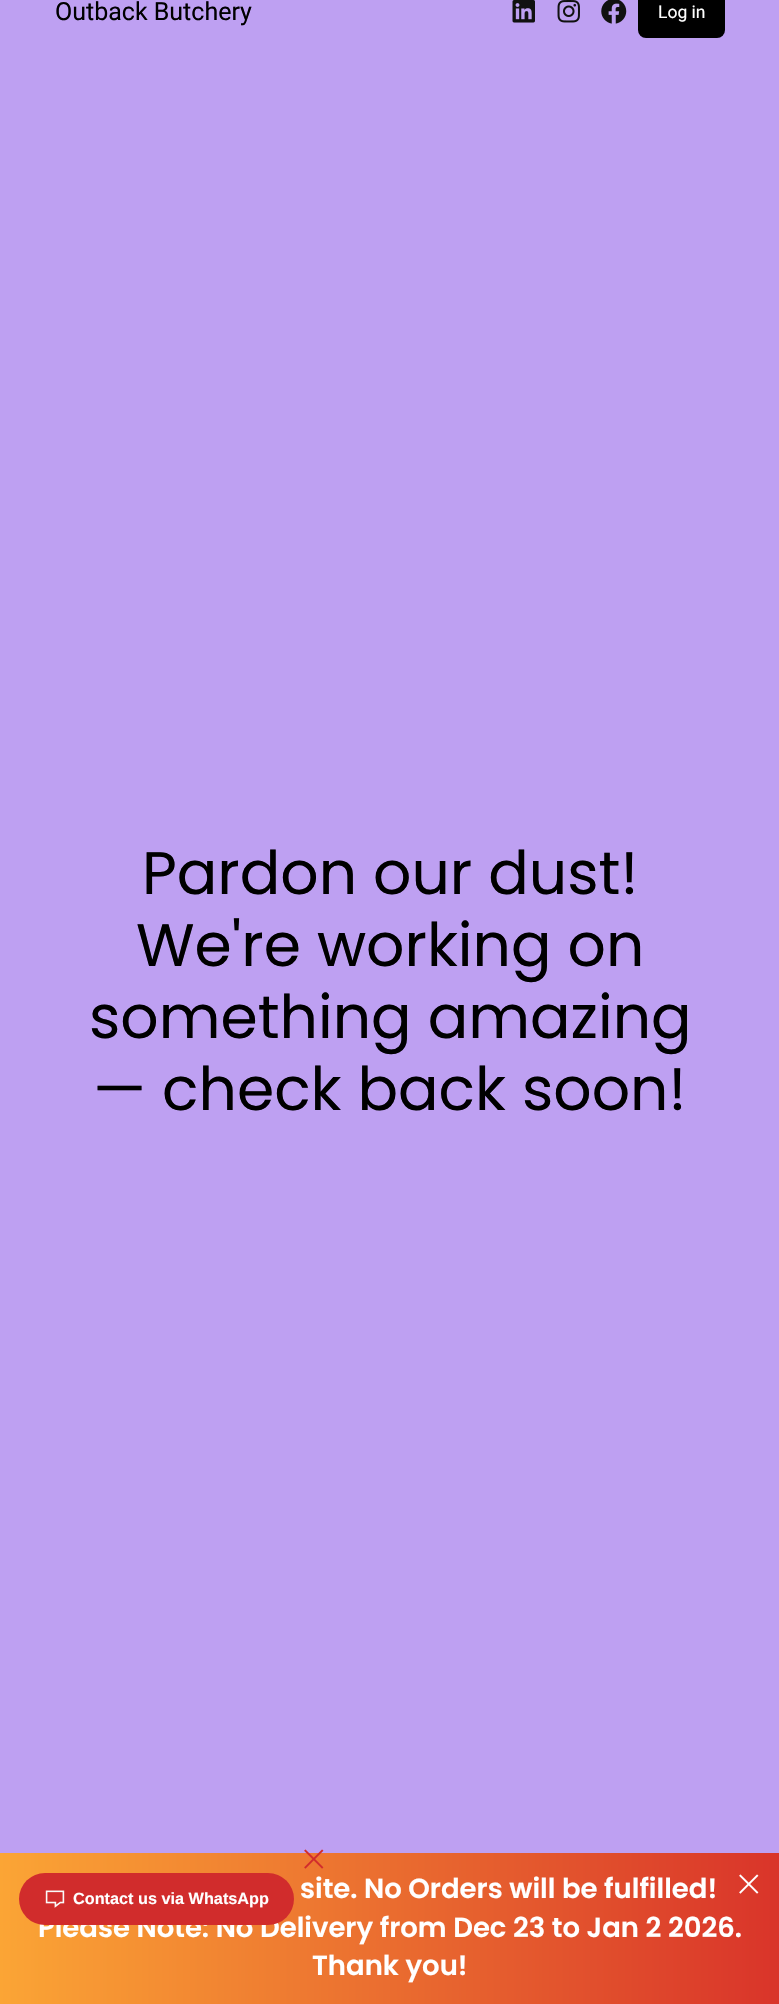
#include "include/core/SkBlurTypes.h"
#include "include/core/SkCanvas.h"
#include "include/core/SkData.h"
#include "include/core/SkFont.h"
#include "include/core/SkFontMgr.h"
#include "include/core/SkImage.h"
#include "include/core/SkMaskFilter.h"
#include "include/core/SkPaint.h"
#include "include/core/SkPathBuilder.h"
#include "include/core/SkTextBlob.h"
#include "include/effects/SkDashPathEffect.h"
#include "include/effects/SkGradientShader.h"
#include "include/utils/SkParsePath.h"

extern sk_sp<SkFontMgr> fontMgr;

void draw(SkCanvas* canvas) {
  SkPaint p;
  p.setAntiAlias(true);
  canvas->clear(SkColorSetRGB(190, 160, 242));
  canvas->drawImageRect(SkImages::DeferredFromEncodedData(SkData::MakeFromFileName("images/1.png")), SkRect::MakeLTRB(512, 0, 535, 23), SkSamplingOptions());
  canvas->drawImageRect(SkImages::DeferredFromEncodedData(SkData::MakeFromFileName("images/2.png")), SkRect::MakeLTRB(557, 0, 580, 23), SkSamplingOptions());
  canvas->drawImageRect(SkImages::DeferredFromEncodedData(SkData::MakeFromFileName("images/3.png")), SkRect::MakeLTRB(601, 0, 627, 24), SkSamplingOptions());
  p.setColor(SK_ColorBLACK);
  canvas->drawRoundRect(SkRect::MakeLTRB(638, -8, 725, 38), 8, 8, p);
  {
    const SkColor colors[] = {SkColorSetRGB(251, 165, 53), SkColorSetRGB(217, 52, 42)};
    const float stops[] = {0, 1};
    const SkPoint ends[] = {{0, 1929}, {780, 1929}};
    p.setShader(SkGradientShader::MakeLinear(ends, colors, stops, 2, SkTileMode::kClamp));
    p.setAlpha(255);
  }
  canvas->drawRect(SkRect::MakeLTRB(0, 1853, 779, 2004), p);
  canvas->drawImageRect(SkImages::DeferredFromEncodedData(SkData::MakeFromFileName("images/4.png")), SkRect::MakeLTRB(739, 1874, 759, 1894), SkSamplingOptions());
  canvas->drawImageRect(SkImages::DeferredFromEncodedData(SkData::MakeFromFileName("images/5.png")), SkRect::MakeLTRB(304, 1849, 324, 1869), SkSamplingOptions());
  SkFont font1(fontMgr->matchFamilyStyle("Roboto", SkFontStyle::Normal()), 25);
  font1.setSubpixel(true);
  p.setShader(nullptr);
  p.setColor(SK_ColorBLACK);
  canvas->drawString("Outback Butchery", 55, 20, font1, p);
  SkFont font2(fontMgr->matchFamilyStyle("Roboto", SkFontStyle::Normal()), 17.5f);
  font2.setSubpixel(true);
  p.setColor(SK_ColorWHITE);
  canvas->drawString("Log in", 658, 18, font2, p);
  SkFont font3(fontMgr->matchFamilyStyle("Poppins", SkFontStyle::Normal()), 60);
  font3.setSubpixel(true);
  p.setColor(SK_ColorBLACK);
  canvas->drawString("Pardon our dust!", 142, 894, font3, p);
  canvas->drawString("We're working on", 136, 966, font3, p);
  canvas->drawString("something amazing", 89, 1038, font3, p);
  canvas->drawString("— check back soon!", 93, 1110, font3, p);
  SkFont font4(fontMgr->matchFamilyStyle("Poppins", SkFontStyle(600, SkFontStyle::kNormal_Width, SkFontStyle::kUpright_Slant)), 27.5f);
  font4.setSubpixel(true);
  p.setColor(SK_ColorWHITE);
  canvas->drawString("site. No Orders will be fulfilled!", 300, 1898, font4, p);
  canvas->drawString("Please Note: No Delivery from Dec 23 to Jan 2 2026.", 38, 1937, font4, p);
  canvas->drawString("Thank you!", 312, 1975, font4, p);
  p.setColor(SkColorSetRGB(209, 44, 44));
  canvas->drawRoundRect(SkRect::MakeLTRB(19, 1873, 294, 1925), 26, 26, p);
  canvas->drawImageRect(SkImages::DeferredFromEncodedData(SkData::MakeFromFileName("images/6.png")), SkRect::MakeLTRB(45, 1890, 65, 1908), SkSamplingOptions());
  SkFont font5(fontMgr->matchFamilyStyle("Liberation Sans", SkFontStyle::Bold()), 16.25f);
  font5.setSubpixel(true);
  p.setColor(SK_ColorWHITE);
  canvas->drawString("Contact us via WhatsApp", 73, 1904, font5, p);
}
